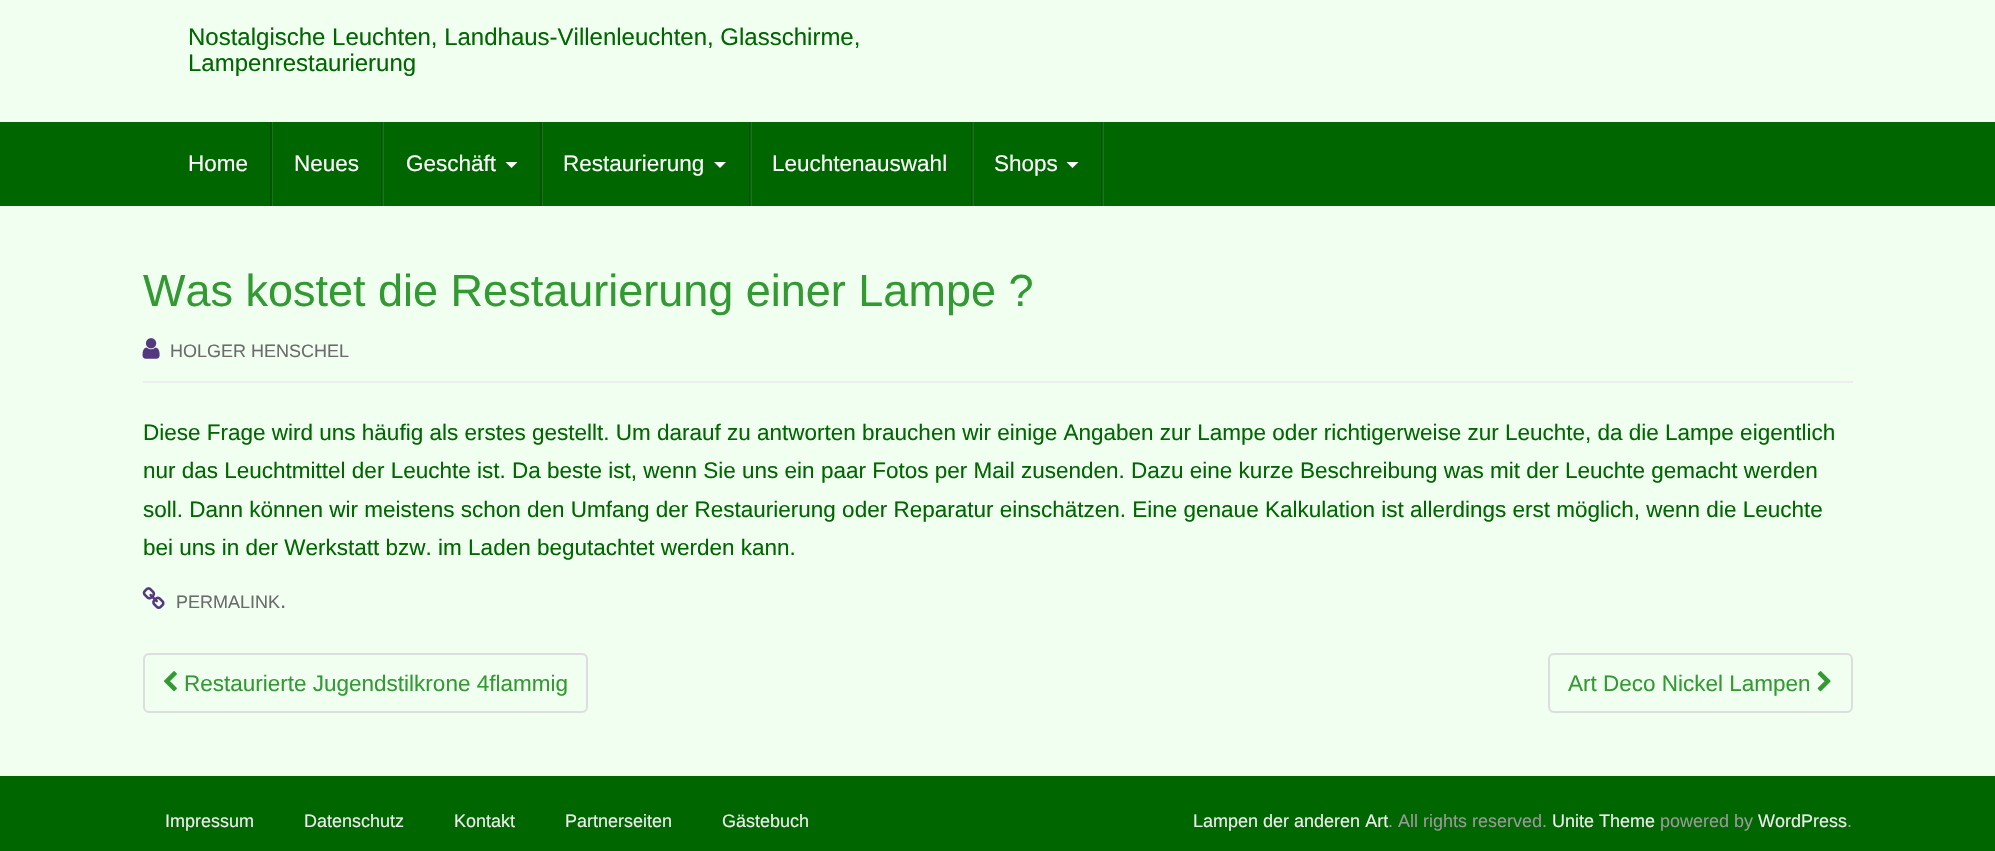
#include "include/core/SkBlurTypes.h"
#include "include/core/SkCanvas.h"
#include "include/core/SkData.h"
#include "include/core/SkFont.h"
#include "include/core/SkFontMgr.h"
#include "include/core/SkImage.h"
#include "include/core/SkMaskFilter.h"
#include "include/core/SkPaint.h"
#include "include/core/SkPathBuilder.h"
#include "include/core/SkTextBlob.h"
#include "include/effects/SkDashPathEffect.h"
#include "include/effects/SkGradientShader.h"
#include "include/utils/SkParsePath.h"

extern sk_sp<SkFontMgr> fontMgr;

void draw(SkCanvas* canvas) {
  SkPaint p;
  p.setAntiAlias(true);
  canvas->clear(SkColorSetRGB(240, 255, 240));
  p.setColor(SkColorSetRGB(0, 102, 0));
  canvas->drawRect(SkRect::MakeLTRB(0, 122, 1995, 206), p);
  p.setColor(SkColorSetRGB(26, 117, 26));
  canvas->drawPath(SkPathBuilder().moveTo(167, 206).lineTo(273, 206).lineTo(273, 122).lineTo(272, 122).lineTo(272, 206).close().detach(), p);
  p.setColor(SkColorSetRGB(0, 82, 0));
  canvas->drawRect(SkRect::MakeLTRB(270, 122, 272, 206), p);
  p.setColor(SkColorSetRGB(26, 117, 26));
  canvas->drawPath(SkPathBuilder().moveTo(273, 206).lineTo(384, 206).lineTo(384, 122).lineTo(382, 122).lineTo(382, 206).close().detach(), p);
  p.setColor(SkColorSetARGB(51, 0, 0, 0));
  canvas->drawRect(SkRect::MakeLTRB(381, 122, 383, 206), p);
  p.setColor(SkColorSetRGB(26, 117, 26));
  canvas->drawPath(SkPathBuilder().moveTo(384, 206).lineTo(543, 206).lineTo(543, 122).lineTo(542, 122).lineTo(542, 206).close().detach(), p);
  p.setColor(SkColorSetRGB(0, 82, 0));
  canvas->drawRect(SkRect::MakeLTRB(540, 122, 542, 206), p);
  p.setColor(SK_ColorWHITE);
  canvas->drawPath(SkPathBuilder().moveTo(505.5f, 162).lineTo(517.5f, 162).lineTo(511.5f, 168).close().detach(), p);
  p.setColor(SkColorSetRGB(26, 117, 26));
  canvas->drawPath(SkPathBuilder().moveTo(543, 206).lineTo(752, 206).lineTo(752, 122).lineTo(750, 122).lineTo(750, 206).close().detach(), p);
  p.setColor(SkColorSetARGB(51, 0, 0, 0));
  canvas->drawRect(SkRect::MakeLTRB(749, 122, 751, 206), p);
  p.setColor(SK_ColorWHITE);
  canvas->drawPath(SkPathBuilder().moveTo(714, 162).lineTo(726, 162).lineTo(720, 168).close().detach(), p);
  p.setColor(SkColorSetRGB(26, 117, 26));
  canvas->drawPath(SkPathBuilder().moveTo(752, 206).lineTo(974, 206).lineTo(974, 122).lineTo(972, 122).lineTo(972, 206).close().detach(), p);
  p.setColor(SkColorSetARGB(51, 0, 0, 0));
  canvas->drawRect(SkRect::MakeLTRB(971, 122, 973, 206), p);
  p.setColor(SkColorSetRGB(26, 117, 26));
  canvas->drawPath(SkPathBuilder().moveTo(974, 206).lineTo(1104, 206).lineTo(1104, 122).lineTo(1102, 122).lineTo(1102, 206).close().detach(), p);
  p.setColor(SkColorSetARGB(51, 0, 0, 0));
  canvas->drawRect(SkRect::MakeLTRB(1101, 122, 1103, 206), p);
  p.setColor(SK_ColorWHITE);
  canvas->drawPath(SkPathBuilder().moveTo(1066.5f, 162).lineTo(1078.5f, 162).lineTo(1072.5f, 168).close().detach(), p);
  p.setColor(SkColorSetRGB(238, 238, 238));
  canvas->drawRect(SkRect::MakeLTRB(143, 381, 1853, 383), p);
  canvas->drawImageRect(SkImages::DeferredFromEncodedData(SkData::MakeFromFileName("images/1.png")), SkRect::MakeLTRB(142, 338, 160, 359), SkSamplingOptions());
  canvas->drawImageRect(SkImages::DeferredFromEncodedData(SkData::MakeFromFileName("images/2.png")), SkRect::MakeLTRB(142, 587, 165, 609), SkSamplingOptions());
  p.setStyle(SkPaint::kStroke_Style);
  p.setStrokeWidth(2);
  p.setColor(SkColorSetRGB(221, 221, 221));
  canvas->drawRoundRect(SkRect::MakeLTRB(144, 654, 587, 712), 5, 5, p);
  canvas->drawImageRect(SkImages::DeferredFromEncodedData(SkData::MakeFromFileName("images/3.png")), SkRect::MakeLTRB(164, 671, 177, 692), SkSamplingOptions());
  canvas->drawRoundRect(SkRect::MakeLTRB(1549, 654, 1852, 712), 5, 5, p);
  canvas->drawImageRect(SkImages::DeferredFromEncodedData(SkData::MakeFromFileName("images/4.png")), SkRect::MakeLTRB(1817, 671, 1831, 692), SkSamplingOptions());
  p.setStyle(SkPaint::kFill_Style);
  p.setColor(SkColorSetRGB(0, 102, 0));
  canvas->drawRect(SkRect::MakeLTRB(0, 776, 1995, 851), p);
  SkFont font1(fontMgr->matchFamilyStyle("Liberation Sans", SkFontStyle::Normal()), 24);
  font1.setSubpixel(true);
  canvas->drawString("Nostalgische Leuchten, Landhaus-Villenleuchten, Glasschirme,", 188, 45, font1, p);
  canvas->drawString("Lampenrestaurierung", 188, 71, font1, p);
  SkFont font2(fontMgr->matchFamilyStyle("Liberation Sans", SkFontStyle::Normal()), 22.5f);
  font2.setSubpixel(true);
  p.setColor(SK_ColorWHITE);
  canvas->drawString("Home", 188, 171, font2, p);
  canvas->drawString("Neues", 294, 171, font2, p);
  canvas->drawString("Geschäft", 406, 171, font2, p);
  canvas->drawString("Restaurierung", 563, 171, font2, p);
  canvas->drawString("Leuchtenauswahl", 772, 171, font2, p);
  canvas->drawString("Shops", 994, 171, font2, p);
  SkFont font3(fontMgr->matchFamilyStyle("Liberation Sans", SkFontStyle::Normal()), 45);
  font3.setSubpixel(true);
  p.setColor(SkColorSetRGB(51, 153, 51));
  canvas->drawString("Was kostet die Restaurierung einer Lampe ?", 143, 306, font3, p);
  SkFont font4(fontMgr->matchFamilyStyle("Liberation Sans", SkFontStyle::Normal()), 18);
  font4.setSubpixel(true);
  p.setColor(SkColorSetRGB(107, 107, 107));
  canvas->drawString("HOLGER HENSCHEL", 170, 357, font4, p);
  p.setColor(SkColorSetRGB(0, 102, 0));
  canvas->drawString("Diese Frage wird uns häufig als erstes gestellt. Um darauf zu antworten brauchen wir einige Angaben zur Lampe oder richtigerweise zur Leuchte, da die Lampe eigentlich", 143, 440, font2, p);
  canvas->drawString("nur das Leuchtmittel der Leuchte ist. Da beste ist, wenn Sie uns ein paar Fotos per Mail zusenden. Dazu eine kurze Beschreibung was mit der Leuchte gemacht werden", 143, 478, font2, p);
  canvas->drawString("soll. Dann können wir meistens schon den Umfang der Restaurierung oder Reparatur einschätzen. Eine genaue Kalkulation ist allerdings erst möglich, wenn die Leuchte", 143, 517, font2, p);
  canvas->drawString("bei uns in der Werkstatt bzw. im Laden begutachtet werden kann.", 143, 555, font2, p);
  p.setColor(SkColorSetRGB(107, 107, 107));
  canvas->drawString("PERMALINK", 176, 608, font4, p);
  canvas->drawString(".", 280, 608, font2, p);
  p.setColor(SkColorSetRGB(51, 153, 51));
  canvas->drawString("Restaurierte Jugendstilkrone 4flammig", 184, 691, font2, p);
  canvas->drawString("Art Deco Nickel Lampen", 1568, 691, font2, p);
  p.setColor(SkColorSetRGB(238, 238, 238));
  canvas->drawString("Impressum", 165, 827, font4, p);
  canvas->drawString("Datenschutz", 304, 827, font4, p);
  canvas->drawString("Kontakt", 454, 827, font4, p);
  canvas->drawString("Partnerseiten", 565, 827, font4, p);
  canvas->drawString("Gästebuch", 722, 827, font4, p);
  canvas->drawString("Lampen der anderen Art", 1193, 827, font4, p);
  p.setColor(SkColorSetRGB(153, 153, 153));
  canvas->drawString(". All rights reserved.", 1388, 827, font4, p);
  p.setColor(SkColorSetRGB(238, 238, 238));
  canvas->drawString("Unite Theme", 1552, 827, font4, p);
  p.setColor(SkColorSetRGB(153, 153, 153));
  canvas->drawString("powered by", 1660, 827, font4, p);
  p.setColor(SkColorSetRGB(238, 238, 238));
  canvas->drawString("WordPress", 1758, 827, font4, p);
  p.setColor(SkColorSetRGB(153, 153, 153));
  canvas->drawString(".", 1847, 827, font4, p);
}
